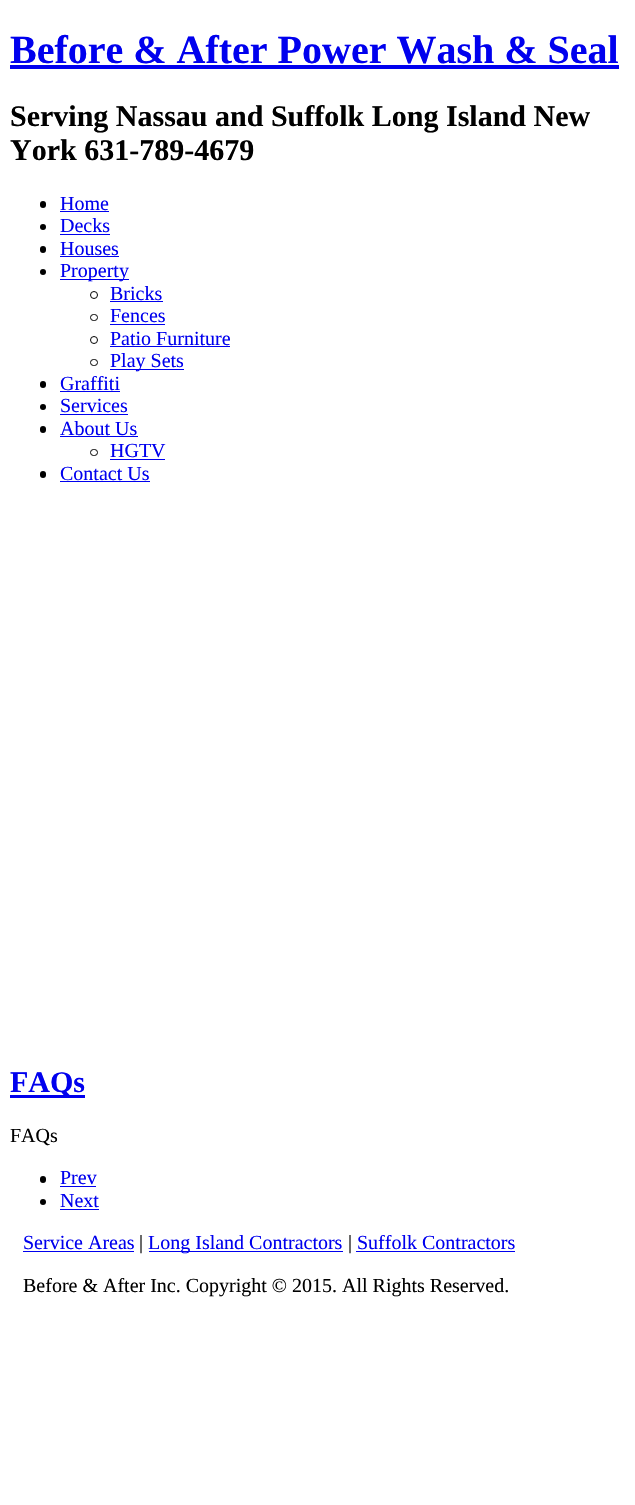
#include "include/core/SkBlurTypes.h"
#include "include/core/SkCanvas.h"
#include "include/core/SkData.h"
#include "include/core/SkFont.h"
#include "include/core/SkFontMgr.h"
#include "include/core/SkImage.h"
#include "include/core/SkMaskFilter.h"
#include "include/core/SkPaint.h"
#include "include/core/SkPathBuilder.h"
#include "include/core/SkTextBlob.h"
#include "include/effects/SkDashPathEffect.h"
#include "include/effects/SkGradientShader.h"
#include "include/utils/SkParsePath.h"

extern sk_sp<SkFontMgr> fontMgr;

void draw(SkCanvas* canvas) {
  SkPaint p;
  p.setAntiAlias(true);
  canvas->clear(SK_ColorWHITE);
  p.setColor(SkColorSetRGB(0, 0, 238));
  canvas->drawRect(SkRect::MakeLTRB(10, 65, 619, 69), p);
  p.setColor(SK_ColorBLACK);
  canvas->drawRoundRect(SkRect::MakeLTRB(40, 201, 46, 208), 3, 3, p);
  p.setColor(SkColorSetRGB(0, 0, 238));
  canvas->drawRect(SkRect::MakeLTRB(60, 211, 109, 212), p);
  p.setColor(SK_ColorBLACK);
  canvas->drawCircle(43, 227, 3, p);
  p.setColor(SkColorSetRGB(0, 0, 238));
  canvas->drawRect(SkRect::MakeLTRB(60, 234, 110, 235), p);
  p.setColor(SK_ColorBLACK);
  canvas->drawRoundRect(SkRect::MakeLTRB(40, 246, 46, 253), 3, 3, p);
  p.setColor(SkColorSetRGB(0, 0, 238));
  canvas->drawRect(SkRect::MakeLTRB(60, 256, 119, 257), p);
  p.setColor(SK_ColorBLACK);
  canvas->drawCircle(43, 272, 3, p);
  p.setColor(SkColorSetRGB(0, 0, 238));
  canvas->drawRect(SkRect::MakeLTRB(60, 279, 129, 280), p);
  p.setStyle(SkPaint::kStroke_Style);
  p.setStrokeWidth(1);
  p.setColor(SK_ColorBLACK);
  canvas->drawCircle(94, 295, 3.5f, p);
  p.setStyle(SkPaint::kFill_Style);
  p.setColor(SkColorSetRGB(0, 0, 238));
  canvas->drawRect(SkRect::MakeLTRB(110, 301, 163, 302), p);
  p.setStyle(SkPaint::kStroke_Style);
  p.setColor(SK_ColorBLACK);
  canvas->drawRoundRect(SkRect::MakeLTRB(90.5f, 314.5f, 97.5f, 320.5f), 3, 3, p);
  p.setStyle(SkPaint::kFill_Style);
  p.setColor(SkColorSetRGB(0, 0, 238));
  canvas->drawRect(SkRect::MakeLTRB(110, 324, 165, 325), p);
  p.setStyle(SkPaint::kStroke_Style);
  p.setColor(SK_ColorBLACK);
  canvas->drawCircle(94, 340, 3.5f, p);
  p.setStyle(SkPaint::kFill_Style);
  p.setColor(SkColorSetRGB(0, 0, 238));
  canvas->drawRect(SkRect::MakeLTRB(110, 346, 230, 347), p);
  p.setStyle(SkPaint::kStroke_Style);
  p.setColor(SK_ColorBLACK);
  canvas->drawRoundRect(SkRect::MakeLTRB(90.5f, 359.5f, 97.5f, 365.5f), 3, 3, p);
  p.setStyle(SkPaint::kFill_Style);
  p.setColor(SkColorSetRGB(0, 0, 238));
  canvas->drawRect(SkRect::MakeLTRB(110, 369, 184, 370), p);
  p.setColor(SK_ColorBLACK);
  canvas->drawRoundRect(SkRect::MakeLTRB(40, 381, 46, 388), 3, 3, p);
  p.setColor(SkColorSetRGB(0, 0, 238));
  canvas->drawRect(SkRect::MakeLTRB(60, 391, 120, 392), p);
  p.setColor(SK_ColorBLACK);
  canvas->drawCircle(43, 407, 3, p);
  p.setColor(SkColorSetRGB(0, 0, 238));
  canvas->drawRect(SkRect::MakeLTRB(60, 414, 128, 415), p);
  p.setColor(SK_ColorBLACK);
  canvas->drawRoundRect(SkRect::MakeLTRB(40, 426, 46, 433), 3, 3, p);
  p.setColor(SkColorSetRGB(0, 0, 238));
  canvas->drawRect(SkRect::MakeLTRB(60, 436, 138, 437), p);
  p.setStyle(SkPaint::kStroke_Style);
  p.setColor(SK_ColorBLACK);
  canvas->drawRoundRect(SkRect::MakeLTRB(90.5f, 449.5f, 97.5f, 455.5f), 3, 3, p);
  p.setStyle(SkPaint::kFill_Style);
  p.setColor(SkColorSetRGB(0, 0, 238));
  canvas->drawRect(SkRect::MakeLTRB(110, 459, 165, 460), p);
  p.setColor(SK_ColorBLACK);
  canvas->drawRoundRect(SkRect::MakeLTRB(40, 471, 46, 478), 3, 3, p);
  p.setColor(SkColorSetRGB(0, 0, 238));
  canvas->drawRect(SkRect::MakeLTRB(60, 481, 150, 482), p);
  canvas->drawRect(SkRect::MakeLTRB(10, 1095, 85, 1098), p);
  p.setColor(SK_ColorBLACK);
  canvas->drawRoundRect(SkRect::MakeLTRB(40, 1176, 46, 1183), 3, 3, p);
  p.setColor(SkColorSetRGB(0, 0, 238));
  canvas->drawRect(SkRect::MakeLTRB(60, 1186, 96, 1187), p);
  p.setColor(SK_ColorBLACK);
  canvas->drawCircle(43, 1202, 3, p);
  p.setColor(SkColorSetRGB(0, 0, 238));
  canvas->drawRect(SkRect::MakeLTRB(60, 1209, 99, 1210), p);
  canvas->drawRect(SkRect::MakeLTRB(23, 1251, 134, 1252), p);
  canvas->drawRect(SkRect::MakeLTRB(149, 1251, 343, 1252), p);
  canvas->drawRect(SkRect::MakeLTRB(356, 1251, 515, 1252), p);
  SkFont font1(fontMgr->matchFamilyStyle("Liberation Serif", SkFontStyle::Bold()), 40);
  font1.setSubpixel(true);
  canvas->drawString("Before & After Power Wash & Seal", 10, 63, font1, p);
  SkFont font2(fontMgr->matchFamilyStyle("Liberation Serif", SkFontStyle::Bold()), 30);
  font2.setSubpixel(true);
  p.setColor(SK_ColorBLACK);
  canvas->drawString("Serving Nassau and Suffolk Long Island New", 10, 126, font2, p);
  canvas->drawString("York 631-789-4679", 10, 160, font2, p);
  SkFont font3(fontMgr->matchFamilyStyle("Liberation Serif", SkFontStyle::Normal()), 20);
  font3.setSubpixel(true);
  p.setColor(SkColorSetRGB(0, 0, 238));
  canvas->drawString("Home", 60, 210, font3, p);
  canvas->drawString("Decks", 60, 232, font3, p);
  canvas->drawString("Houses", 60, 255, font3, p);
  canvas->drawString("Property", 60, 277, font3, p);
  canvas->drawString("Bricks", 110, 300, font3, p);
  canvas->drawString("Fences", 110, 322, font3, p);
  canvas->drawString("Patio Furniture", 110, 345, font3, p);
  canvas->drawString("Play Sets", 110, 367, font3, p);
  canvas->drawString("Graffiti", 60, 390, font3, p);
  canvas->drawString("Services", 60, 412, font3, p);
  canvas->drawString("About Us", 60, 435, font3, p);
  canvas->drawString("HGTV", 110, 457, font3, p);
  canvas->drawString("Contact Us", 60, 480, font3, p);
  canvas->drawString("FAQs", 10, 1092, font2, p);
  p.setColor(SK_ColorBLACK);
  canvas->drawString("FAQs", 10, 1142, font3, p);
  p.setColor(SkColorSetRGB(0, 0, 238));
  canvas->drawString("Prev", 60, 1184, font3, p);
  canvas->drawString("Next", 60, 1207, font3, p);
  canvas->drawString("Service Areas", 23, 1249, font3, p);
  p.setColor(SK_ColorBLACK);
  canvas->drawString("|", 139, 1249, font3, p);
  p.setColor(SkColorSetRGB(0, 0, 238));
  canvas->drawString("Long Island Contractors", 148, 1249, font3, p);
  p.setColor(SK_ColorBLACK);
  canvas->drawString("|", 348, 1249, font3, p);
  p.setColor(SkColorSetRGB(0, 0, 238));
  canvas->drawString("Suffolk Contractors", 357, 1249, font3, p);
  p.setColor(SK_ColorBLACK);
  canvas->drawString("Before & After Inc. Copyright © 2015. All Rights Reserved.", 23, 1292, font3, p);
}
